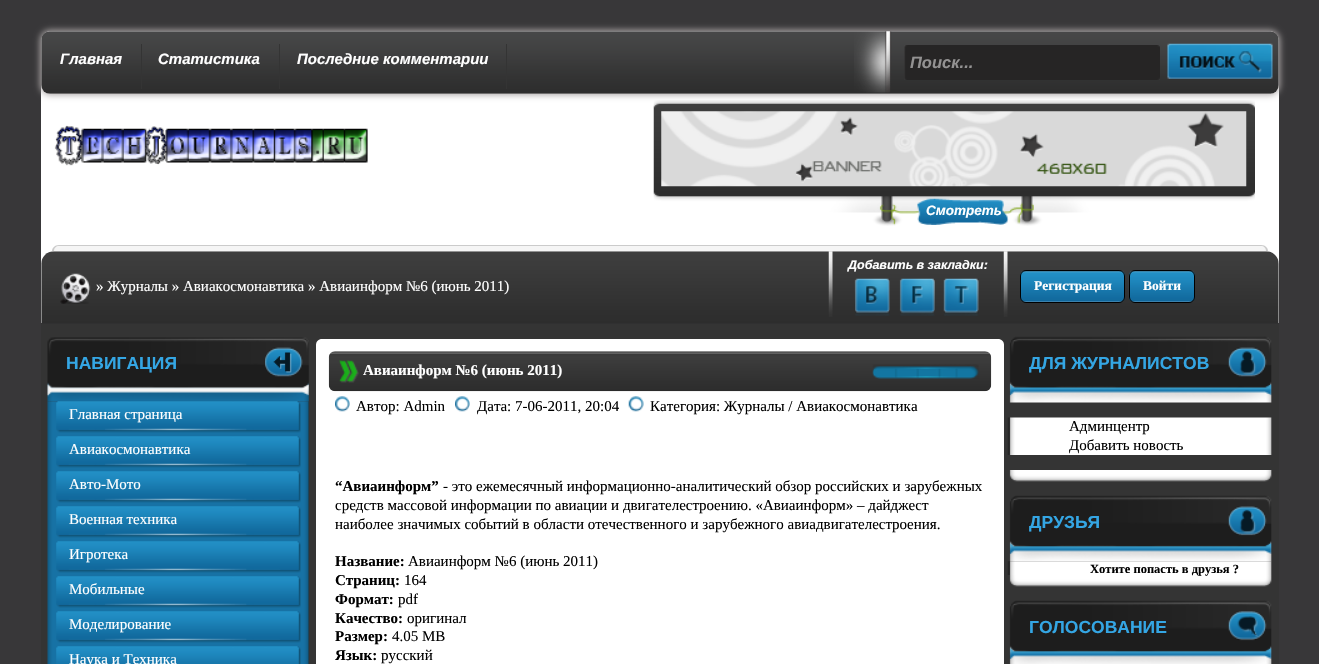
#include "include/core/SkBlurTypes.h"
#include "include/core/SkCanvas.h"
#include "include/core/SkData.h"
#include "include/core/SkFont.h"
#include "include/core/SkFontMgr.h"
#include "include/core/SkImage.h"
#include "include/core/SkMaskFilter.h"
#include "include/core/SkPaint.h"
#include "include/core/SkPathBuilder.h"
#include "include/core/SkTextBlob.h"
#include "include/effects/SkDashPathEffect.h"
#include "include/effects/SkGradientShader.h"
#include "include/utils/SkParsePath.h"

extern sk_sp<SkFontMgr> fontMgr;

void draw(SkCanvas* canvas) {
  SkPaint p;
  p.setAntiAlias(true);
  canvas->clear(SkColorSetRGB(56, 55, 57));
  p.setColor(SK_ColorWHITE);
  canvas->drawPath(SkPathBuilder().moveTo(51, 31).lineTo(1269, 31).cubicTo(1274.5f, 31, 1279, 35.5f, 1279, 41).lineTo(1279, 323).lineTo(41, 323).lineTo(41, 41).cubicTo(41, 35.5f, 45.5f, 31, 51, 31).close().detach(), p);
  p.setColor(SkColorSetRGB(171, 166, 166));
  p.setMaskFilter(SkMaskFilter::MakeBlur(kNormal_SkBlurStyle, 3));
  canvas->drawRoundRect(SkRect::MakeLTRB(40, 30, 1280, 95), 10, 10, p);
  p.setMaskFilter(nullptr);
  canvas->drawImageRect(SkImages::DeferredFromEncodedData(SkData::MakeFromFileName("images/1.png")), SkRect::MakeLTRB(41, 31, 1279, 94), SkSamplingOptions());
  p.setColor(SkColorSetRGB(52, 52, 52));
  canvas->drawRect(SkRect::MakeLTRB(141, 44, 142, 89), p);
  canvas->drawRect(SkRect::MakeLTRB(279, 44, 280, 89), p);
  canvas->drawRect(SkRect::MakeLTRB(506, 44, 507, 89), p);
  canvas->drawImageRect(SkImages::DeferredFromEncodedData(SkData::MakeFromFileName("images/2.png")), SkRect::MakeLTRB(854, 31, 892, 93), SkSamplingOptions());
  canvas->drawImageRect(SkImages::DeferredFromEncodedData(SkData::MakeFromFileName("images/3.png")), SkRect::MakeLTRB(904, 45, 1160, 80), SkSamplingOptions());
  canvas->drawImageRect(SkImages::DeferredFromEncodedData(SkData::MakeFromFileName("images/4.png")), SkRect::MakeLTRB(1167, 43, 1273, 79), SkSamplingOptions());
  canvas->drawImageRect(SkImages::DeferredFromEncodedData(SkData::MakeFromFileName("images/5.png")), SkRect::MakeLTRB(54, 125, 368, 166), SkSamplingOptions());
  canvas->drawImageRect(SkImages::DeferredFromEncodedData(SkData::MakeFromFileName("images/6.png")), SkRect::MakeLTRB(653, 100, 1255, 226), SkSamplingOptions());
  canvas->drawImageRect(SkImages::DeferredFromEncodedData(SkData::MakeFromFileName("images/7.png")), SkRect::MakeLTRB(661, 111, 1247, 187), SkSamplingOptions());
  canvas->drawImageRect(SkImages::DeferredFromEncodedData(SkData::MakeFromFileName("images/8.png")), SkRect::MakeLTRB(917, 198, 1009, 225), SkSamplingOptions());
  p.setColor(SkColorSetRGB(245, 245, 245));
  canvas->drawPath(SkPathBuilder().moveTo(59, 245).lineTo(1262, 245).cubicTo(1265.5f, 245, 1268, 247.5f, 1268, 251).lineTo(53, 251).cubicTo(53, 247.5f, 55.5f, 245, 59, 245).close().detach(), p);
  p.setColor(SkColorSetRGB(203, 203, 203));
  canvas->drawPath(SkPathBuilder(SkPathFillType::kEvenOdd).moveTo(59, 245).lineTo(1261, 245).cubicTo(1265, 245, 1268, 248, 1268, 251).lineTo(52, 251).cubicTo(52, 248, 55, 245, 59, 245).close().moveTo(59, 246).lineTo(1261, 246).cubicTo(1264, 246, 1266, 248, 1266, 251).lineTo(54, 251).cubicTo(54, 248, 56, 246, 59, 246).close().detach(), p);
  canvas->drawImageRect(SkImages::DeferredFromEncodedData(SkData::MakeFromFileName("images/9.png")), SkRect::MakeLTRB(41, 251, 1279, 324), SkSamplingOptions());
  canvas->drawImageRect(SkImages::DeferredFromEncodedData(SkData::MakeFromFileName("images/10.png")), SkRect::MakeLTRB(60, 273, 91, 304), SkSamplingOptions());
  canvas->drawImageRect(SkImages::DeferredFromEncodedData(SkData::MakeFromFileName("images/11.png")), SkRect::MakeLTRB(828, 251, 833, 317), SkSamplingOptions());
  canvas->drawImageRect(SkImages::DeferredFromEncodedData(SkData::MakeFromFileName("images/12.png")), SkRect::MakeLTRB(854, 278, 890, 316), SkSamplingOptions());
  canvas->drawImageRect(SkImages::DeferredFromEncodedData(SkData::MakeFromFileName("images/13.png")), SkRect::MakeLTRB(899, 278, 935, 316), SkSamplingOptions());
  canvas->drawImageRect(SkImages::DeferredFromEncodedData(SkData::MakeFromFileName("images/14.png")), SkRect::MakeLTRB(943, 278, 979, 316), SkSamplingOptions());
  canvas->drawImageRect(SkImages::DeferredFromEncodedData(SkData::MakeFromFileName("images/11.png")), SkRect::MakeLTRB(1003, 251, 1008, 317), SkSamplingOptions());
  canvas->drawImageRect(SkImages::DeferredFromEncodedData(SkData::MakeFromFileName("images/15.png")), SkRect::MakeLTRB(1020, 271, 1125, 303), SkSamplingOptions());
  canvas->drawImageRect(SkImages::DeferredFromEncodedData(SkData::MakeFromFileName("images/16.png")), SkRect::MakeLTRB(1128, 271, 1195, 303), SkSamplingOptions());
  p.setStyle(SkPaint::kStroke_Style);
  p.setStrokeWidth(1);
  p.setColor(SK_ColorBLACK);
  canvas->drawRoundRect(SkRect::MakeLTRB(1020.5f, 270.5f, 1124.5f, 302.5f), 5.5f, 5.5f, p);
  canvas->drawRoundRect(SkRect::MakeLTRB(1129.5f, 270.5f, 1194.5f, 302.5f), 5.5f, 5.5f, p);
  p.setStyle(SkPaint::kFill_Style);
  p.setColor(SkColorSetRGB(52, 52, 52));
  canvas->drawRect(SkRect::MakeLTRB(41, 324, 1279, 664), p);
  canvas->drawImageRect(SkImages::DeferredFromEncodedData(SkData::MakeFromFileName("images/17.png")), SkRect::MakeLTRB(47, 337, 309, 402), SkSamplingOptions());
  canvas->drawImageRect(SkImages::DeferredFromEncodedData(SkData::MakeFromFileName("images/18.png")), SkRect::MakeLTRB(265, 347, 303, 377), SkSamplingOptions());
  canvas->drawImageRect(SkImages::DeferredFromEncodedData(SkData::MakeFromFileName("images/19.png")), SkRect::MakeLTRB(47, 401, 309, 664), SkSamplingOptions());
  canvas->drawImageRect(SkImages::DeferredFromEncodedData(SkData::MakeFromFileName("images/20.png")), SkRect::MakeLTRB(56, 401, 301, 433), SkSamplingOptions());
  canvas->drawImageRect(SkImages::DeferredFromEncodedData(SkData::MakeFromFileName("images/21.png")), SkRect::MakeLTRB(56, 436, 301, 468), SkSamplingOptions());
  canvas->drawImageRect(SkImages::DeferredFromEncodedData(SkData::MakeFromFileName("images/21.png")), SkRect::MakeLTRB(56, 471, 301, 503), SkSamplingOptions());
  canvas->drawImageRect(SkImages::DeferredFromEncodedData(SkData::MakeFromFileName("images/21.png")), SkRect::MakeLTRB(56, 506, 301, 538), SkSamplingOptions());
  canvas->drawImageRect(SkImages::DeferredFromEncodedData(SkData::MakeFromFileName("images/21.png")), SkRect::MakeLTRB(56, 541, 301, 573), SkSamplingOptions());
  canvas->drawImageRect(SkImages::DeferredFromEncodedData(SkData::MakeFromFileName("images/22.png")), SkRect::MakeLTRB(56, 576, 301, 608), SkSamplingOptions());
  canvas->drawImageRect(SkImages::DeferredFromEncodedData(SkData::MakeFromFileName("images/21.png")), SkRect::MakeLTRB(56, 611, 301, 643), SkSamplingOptions());
  canvas->drawImageRect(SkImages::DeferredFromEncodedData(SkData::MakeFromFileName("images/23.png")), SkRect::MakeLTRB(56, 646, 301, 664), SkSamplingOptions());
  p.setColor(SK_ColorWHITE);
  canvas->drawPath(SkPathBuilder().moveTo(322, 339).lineTo(998, 339).cubicTo(1001.5f, 339, 1004, 341.5f, 1004, 345).lineTo(1004, 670).lineTo(316, 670).lineTo(316, 345).cubicTo(316, 341.5f, 318.5f, 339, 322, 339).close().detach(), p);
  canvas->drawImageRect(SkImages::DeferredFromEncodedData(SkData::MakeFromFileName("images/24.png")), SkRect::MakeLTRB(328, 351, 992, 392), SkSamplingOptions());
  canvas->drawImageRect(SkImages::DeferredFromEncodedData(SkData::MakeFromFileName("images/25.png")), SkRect::MakeLTRB(339, 360, 359, 383), SkSamplingOptions());
  canvas->drawImageRect(SkImages::DeferredFromEncodedData(SkData::MakeFromFileName("images/26.png")), SkRect::MakeLTRB(872, 364, 979, 379), SkSamplingOptions());
  canvas->drawImageRect(SkImages::DeferredFromEncodedData(SkData::MakeFromFileName("images/27.png")), SkRect::MakeLTRB(335, 396, 350, 412), SkSamplingOptions());
  canvas->drawImageRect(SkImages::DeferredFromEncodedData(SkData::MakeFromFileName("images/28.png")), SkRect::MakeLTRB(455, 396, 470, 412), SkSamplingOptions());
  canvas->drawImageRect(SkImages::DeferredFromEncodedData(SkData::MakeFromFileName("images/29.png")), SkRect::MakeLTRB(628, 396, 644, 412), SkSamplingOptions());
  canvas->drawImageRect(SkImages::DeferredFromEncodedData(SkData::MakeFromFileName("images/30.png")), SkRect::MakeLTRB(1009, 336, 1272, 403), SkSamplingOptions());
  canvas->drawImageRect(SkImages::DeferredFromEncodedData(SkData::MakeFromFileName("images/31.png")), SkRect::MakeLTRB(1228, 347, 1267, 377), SkSamplingOptions());
  canvas->drawImageRect(SkImages::DeferredFromEncodedData(SkData::MakeFromFileName("images/32.png")), SkRect::MakeLTRB(1007, 417, 1272, 455), SkSamplingOptions());
  canvas->drawImageRect(SkImages::DeferredFromEncodedData(SkData::MakeFromFileName("images/33.png")), SkRect::MakeLTRB(1009, 470, 1272, 482), SkSamplingOptions());
  canvas->drawImageRect(SkImages::DeferredFromEncodedData(SkData::MakeFromFileName("images/34.png")), SkRect::MakeLTRB(1009, 495, 1272, 562), SkSamplingOptions());
  canvas->drawImageRect(SkImages::DeferredFromEncodedData(SkData::MakeFromFileName("images/35.png")), SkRect::MakeLTRB(1228, 506, 1267, 536), SkSamplingOptions());
  canvas->drawImageRect(SkImages::DeferredFromEncodedData(SkData::MakeFromFileName("images/36.png")), SkRect::MakeLTRB(1007, 561, 1272, 575), SkSamplingOptions());
  canvas->drawImageRect(SkImages::DeferredFromEncodedData(SkData::MakeFromFileName("images/33.png")), SkRect::MakeLTRB(1009, 575, 1272, 587), SkSamplingOptions());
  canvas->drawImageRect(SkImages::DeferredFromEncodedData(SkData::MakeFromFileName("images/37.png")), SkRect::MakeLTRB(1009, 600, 1272, 664), SkSamplingOptions());
  canvas->drawImageRect(SkImages::DeferredFromEncodedData(SkData::MakeFromFileName("images/38.png")), SkRect::MakeLTRB(1228, 611, 1267, 641), SkSamplingOptions());
  SkFont font1(fontMgr->matchFamilyStyle("Liberation Sans", SkFontStyle::BoldItalic()), 15);
  font1.setSubpixel(true);
  canvas->drawString("Главная", 60, 64, font1, p);
  canvas->drawString("Статистика", 158, 64, font1, p);
  canvas->drawString("Последние комментарии", 297, 64, font1, p);
  SkFont font2(fontMgr->matchFamilyStyle("Liberation Sans", SkFontStyle::BoldItalic()), 16.5f);
  font2.setSubpixel(true);
  p.setColor(SkColorSetRGB(147, 146, 146));
  canvas->drawString("Поиск...", 910, 68, font2, p);
  SkFont font3(fontMgr->matchFamilyStyle("Liberation Sans", SkFontStyle::BoldItalic()), 13.5f);
  font3.setSubpixel(true);
  p.setColor(SK_ColorWHITE);
  canvas->drawString("Смотреть", 926, 215, font3, p);
  SkFont font4(fontMgr->matchFamilyStyle("Liberation Serif", SkFontStyle::Normal()), 15);
  font4.setSubpixel(true);
  canvas->drawString("» Журналы » Авиакосмонавтика » Авиаинформ №6 (июнь 2011)", 96, 291, font4, p);
  SkFont font5(fontMgr->matchFamilyStyle("Liberation Sans", SkFontStyle::BoldItalic()), 12.5f);
  font5.setSubpixel(true);
  canvas->drawString("Добавить в закладки:", 848, 269, font5, p);
  SkFont font6(fontMgr->matchFamilyStyle("Liberation Serif", SkFontStyle::Bold()), 13.5f);
  font6.setSubpixel(true);
  canvas->drawString("Регистрация", 1034, 290, font6, p);
  canvas->drawString("Войти", 1143, 290, font6, p);
  SkFont font7(fontMgr->matchFamilyStyle("Liberation Sans", SkFontStyle::Bold()), 17.5f);
  font7.setSubpixel(true);
  p.setColor(SkColorSetRGB(52, 166, 228));
  canvas->drawString("НАВИГАЦИЯ", 66, 369, font7, p);
  p.setColor(SK_ColorWHITE);
  canvas->drawString("Главная страница", 69, 419, font4, p);
  canvas->drawString("Авиакосмонавтика", 69, 454, font4, p);
  canvas->drawString("Авто-Мото", 69, 489, font4, p);
  canvas->drawString("Военная техника", 69, 524, font4, p);
  canvas->drawString("Игротека", 69, 559, font4, p);
  canvas->drawString("Мобильные", 69, 594, font4, p);
  canvas->drawString("Моделирование", 69, 629, font4, p);
  canvas->drawString("Наука и Техника", 69, 664, font4, p);
  SkFont font8(fontMgr->matchFamilyStyle("Liberation Serif", SkFontStyle::Bold()), 15);
  font8.setSubpixel(true);
  canvas->drawString("Авиаинформ №6 (июнь 2011)", 363, 375, font8, p);
  p.setColor(SK_ColorBLACK);
  canvas->drawString("Автор: Admin", 356, 411, font4, p);
  canvas->drawString("Дата: 7-06-2011, 20:04", 477, 411, font4, p);
  canvas->drawString("Категория: Журналы / Авиакосмонавтика", 650, 411, font4, p);
  canvas->drawString("“Авиаинформ”", 335, 491, font8, p);
  canvas->drawString("- это ежемесячный информационно-аналитический обзор российских и зарубежных", 443, 491, font4, p);
  canvas->drawString("средств массовой информации по авиации и двигателестроению. «Авиаинформ» – дайджест", 335, 510, font4, p);
  canvas->drawString("наиболее значимых событий в области отечественного и зарубежного авиадвигателестроения.", 335, 529, font4, p);
  canvas->drawString("Название:", 335, 566, font8, p);
  canvas->drawString("Авиаинформ №6 (июнь 2011)", 408, 566, font4, p);
  canvas->drawString("Страниц:", 335, 585, font8, p);
  canvas->drawString("164", 404, 585, font4, p);
  canvas->drawString("Формат:", 335, 604, font8, p);
  canvas->drawString("pdf", 398, 604, font4, p);
  canvas->drawString("Качество:", 335, 623, font8, p);
  canvas->drawString("оригинал", 407, 623, font4, p);
  canvas->drawString("Размер:", 335, 641, font8, p);
  canvas->drawString("4.05 MB", 392, 641, font4, p);
  canvas->drawString("Язык:", 335, 660, font8, p);
  canvas->drawString("русский", 381, 660, font4, p);
  p.setColor(SkColorSetRGB(52, 166, 228));
  canvas->drawString("ДЛЯ ЖУРНАЛИСТОВ", 1029, 369, font7, p);
  p.setColor(SK_ColorBLACK);
  canvas->drawString("Админцентр", 1069, 431, font4, p);
  canvas->drawString("Добавить новость", 1069, 450, font4, p);
  p.setColor(SkColorSetRGB(52, 166, 228));
  canvas->drawString("ДРУЗЬЯ", 1029, 528, font7, p);
  SkFont font9(fontMgr->matchFamilyStyle("Liberation Serif", SkFontStyle::Bold()), 12.5f);
  font9.setSubpixel(true);
  p.setColor(SK_ColorBLACK);
  canvas->drawString("Хотите попасть в друзья ?", 1090, 573, font9, p);
  p.setColor(SkColorSetRGB(52, 166, 228));
  canvas->drawString("ГОЛОСОВАНИЕ", 1029, 633, font7, p);
}
